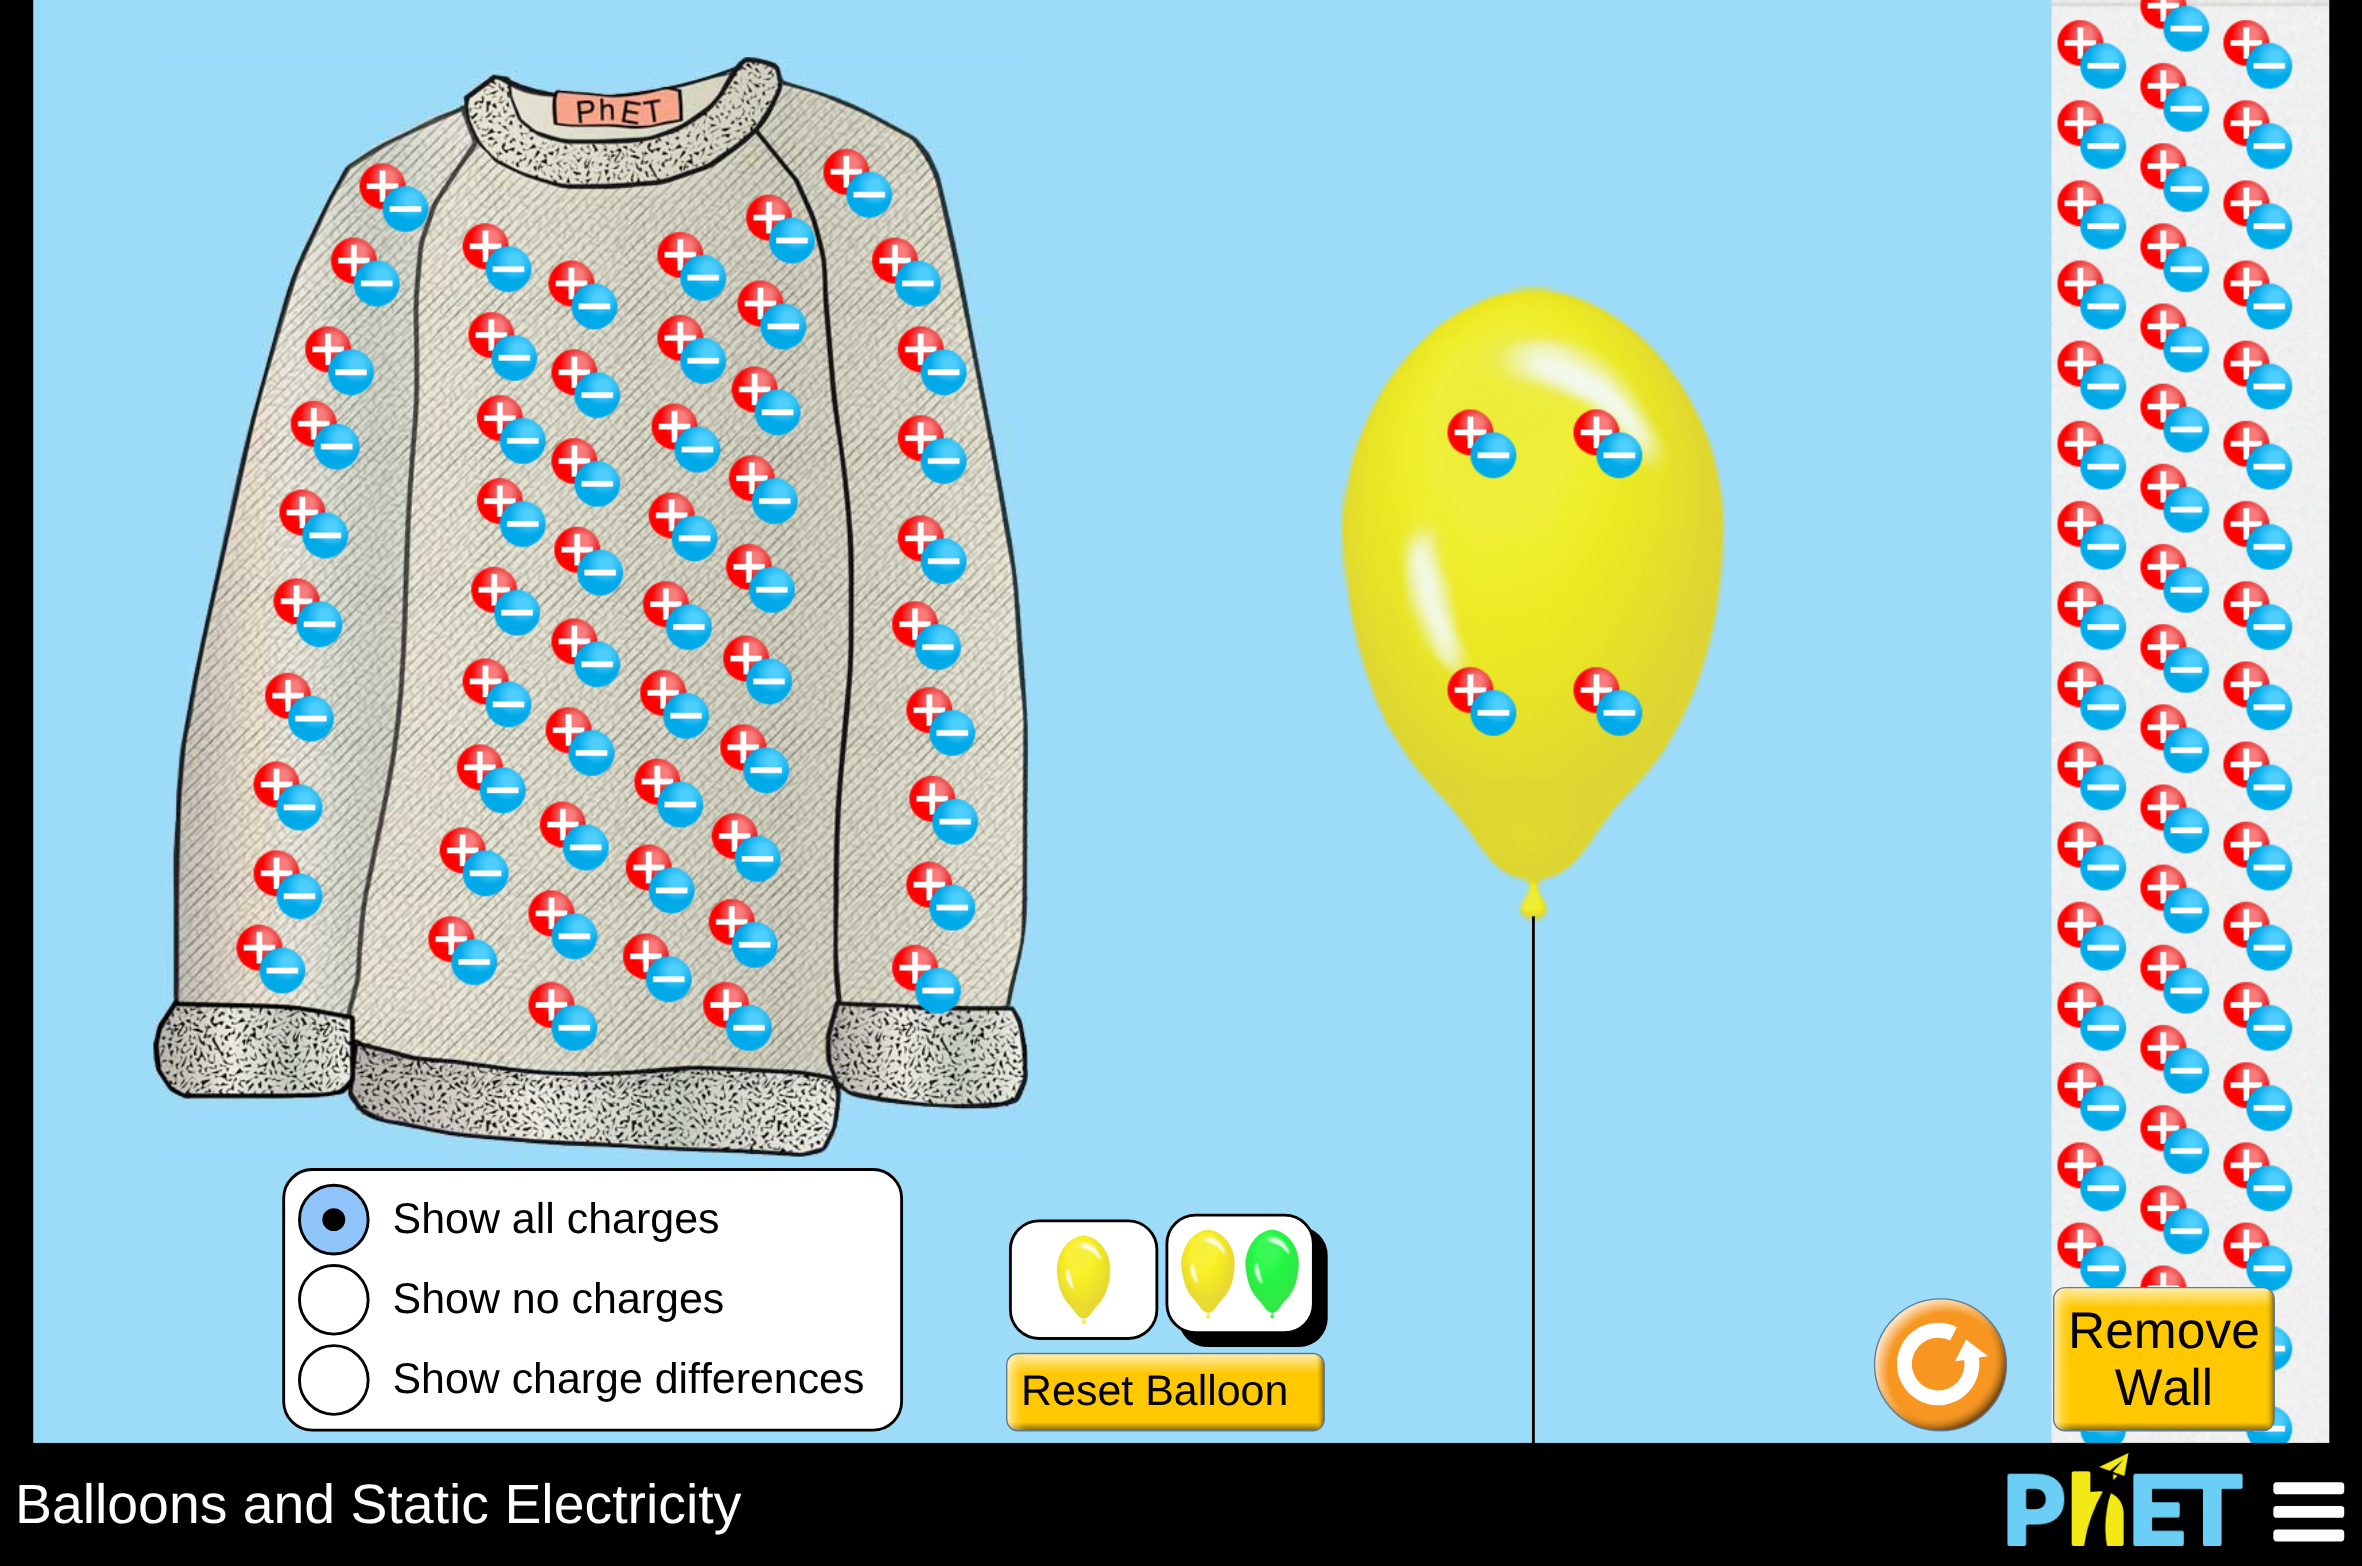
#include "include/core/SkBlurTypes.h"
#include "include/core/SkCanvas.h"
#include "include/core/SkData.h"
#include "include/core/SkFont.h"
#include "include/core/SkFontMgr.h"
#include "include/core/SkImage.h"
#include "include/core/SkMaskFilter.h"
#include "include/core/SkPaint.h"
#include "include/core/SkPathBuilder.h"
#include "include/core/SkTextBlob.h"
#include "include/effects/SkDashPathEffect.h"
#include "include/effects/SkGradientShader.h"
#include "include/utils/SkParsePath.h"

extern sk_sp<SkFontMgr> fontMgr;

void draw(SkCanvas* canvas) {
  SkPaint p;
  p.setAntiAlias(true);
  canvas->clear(SkColorSetRGB(157, 220, 248));
  canvas->drawImageRect(SkImages::DeferredFromEncodedData(SkData::MakeFromFileName("images/1.png")), SkRect::MakeLTRB(0, 0, 2362, 1566), SkSamplingOptions());
  canvas->drawImageRect(SkImages::DeferredFromEncodedData(SkData::MakeFromFileName("images/2.png")), SkRect::MakeLTRB(1341, 286, 1726, 1443), SkSamplingOptions());
  canvas->drawImageRect(SkImages::DeferredFromEncodedData(SkData::MakeFromFileName("images/3.png")), SkRect::MakeLTRB(19, 1168, 2345, 1566), SkSamplingOptions());
}
